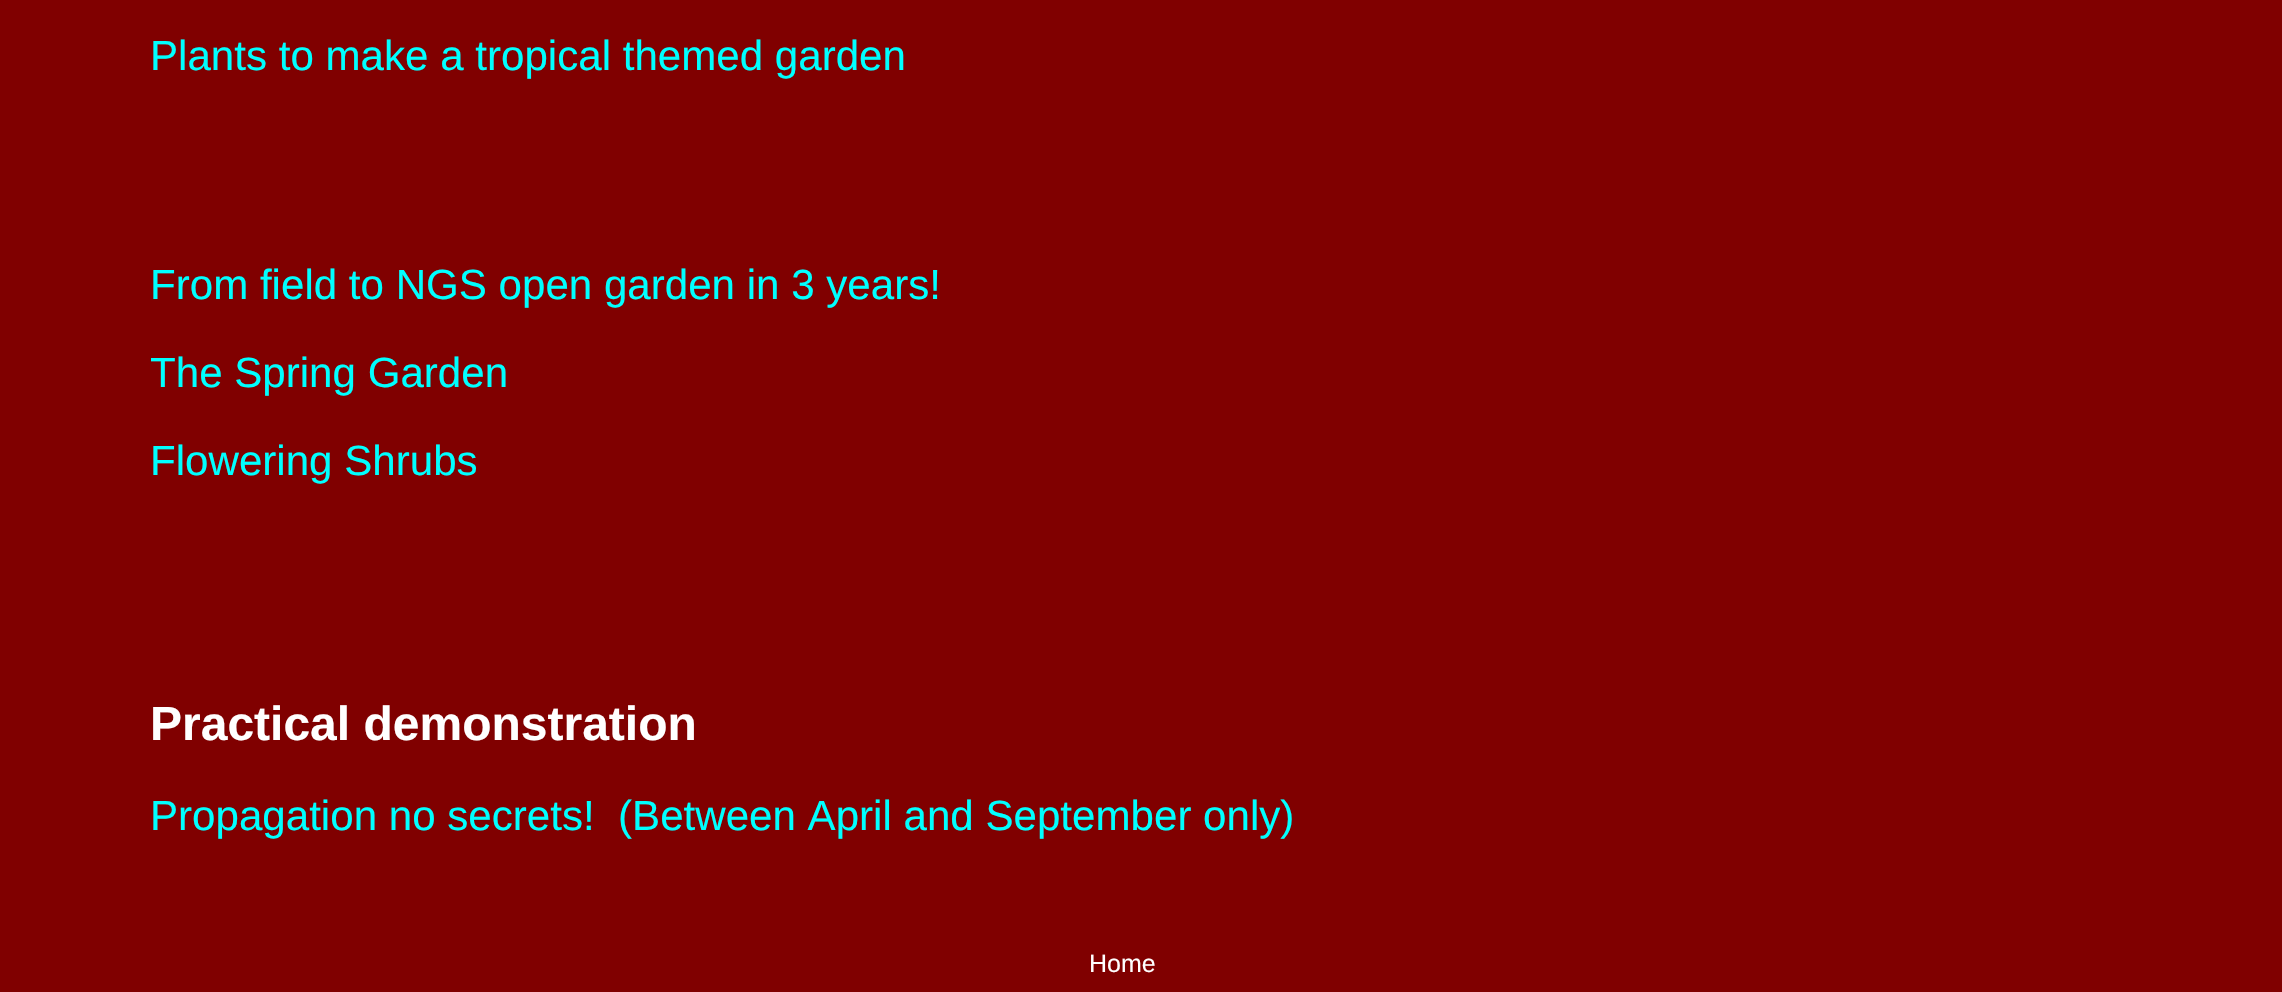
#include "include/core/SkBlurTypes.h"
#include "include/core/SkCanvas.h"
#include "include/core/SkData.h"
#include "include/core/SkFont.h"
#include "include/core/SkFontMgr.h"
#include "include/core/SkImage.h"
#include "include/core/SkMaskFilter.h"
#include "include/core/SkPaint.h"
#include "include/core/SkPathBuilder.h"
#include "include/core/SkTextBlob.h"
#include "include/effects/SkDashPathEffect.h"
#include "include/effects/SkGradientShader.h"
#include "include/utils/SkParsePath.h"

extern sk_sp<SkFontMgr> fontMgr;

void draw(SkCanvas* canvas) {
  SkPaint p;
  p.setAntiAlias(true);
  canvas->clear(SkColorSetRGB(128, 0, 0));
  SkFont font1(fontMgr->matchFamilyStyle("Liberation Sans", SkFontStyle::Normal()), 42.1f);
  font1.setSubpixel(true);
  p.setColor(SkColorSetRGB(0, 255, 255));
  canvas->drawString("Plants to make a tropical themed garden", 150, 70, font1, p);
  canvas->drawString("From field to NGS open garden in 3 years!", 150, 299, font1, p);
  canvas->save();
  canvas->clipRect(SkRect::MakeLTRB(151, 0, 2135, 878));
  canvas->drawString("The Spring Garden", 150, 387, font1, p);
  canvas->restore();
  canvas->drawString("Flowering Shrubs", 150, 475, font1, p);
  SkFont font2(fontMgr->matchFamilyStyle("Liberation Sans", SkFontStyle::Bold()), 48);
  font2.setSubpixel(true);
  p.setColor(SK_ColorWHITE);
  canvas->drawString("Practical demonstration", 150, 740, font2, p);
  p.setColor(SkColorSetRGB(0, 255, 255));
  canvas->drawString("Propagation no secrets!  (Between April and September only)", 150, 830, font1, p);
  SkFont font3(fontMgr->matchFamilyStyle("Liberation Sans", SkFontStyle::Normal()), 25);
  font3.setSubpixel(true);
  p.setColor(SK_ColorWHITE);
  canvas->drawString("Home", 1089, 972, font3, p);
}
